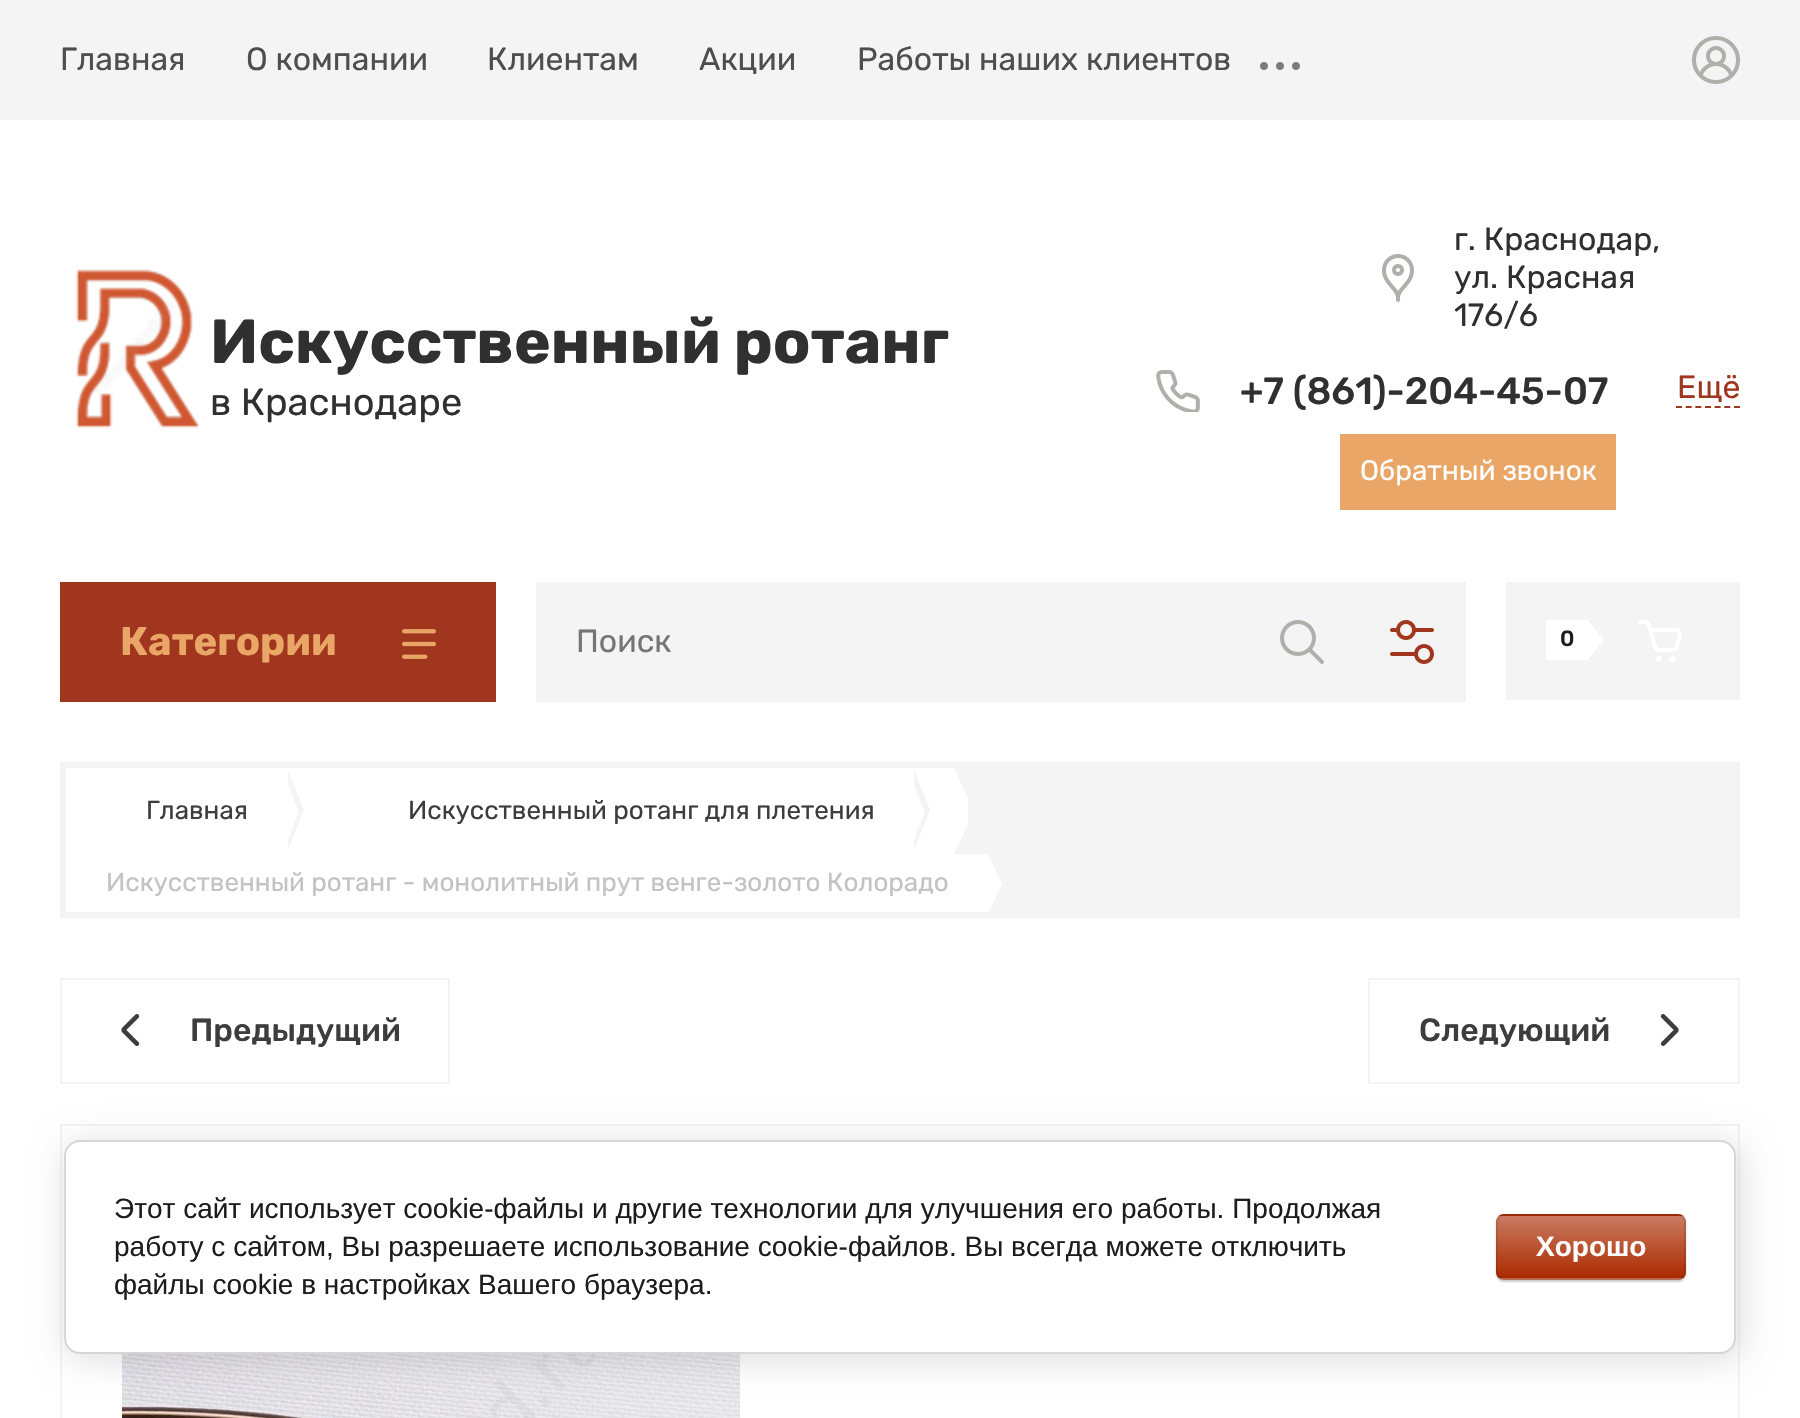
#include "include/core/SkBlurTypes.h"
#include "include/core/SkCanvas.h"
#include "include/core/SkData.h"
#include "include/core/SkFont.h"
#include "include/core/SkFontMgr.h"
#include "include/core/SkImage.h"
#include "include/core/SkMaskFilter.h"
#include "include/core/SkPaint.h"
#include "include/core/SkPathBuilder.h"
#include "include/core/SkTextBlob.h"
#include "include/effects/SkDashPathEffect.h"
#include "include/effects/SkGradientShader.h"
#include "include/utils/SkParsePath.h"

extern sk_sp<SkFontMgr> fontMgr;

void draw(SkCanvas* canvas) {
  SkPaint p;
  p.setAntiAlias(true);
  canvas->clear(SK_ColorWHITE);
  p.setColor(SkColorSetRGB(244, 244, 244));
  canvas->drawRect(SkRect::MakeLTRB(0, 0, 1800, 120), p);
  canvas->drawImageRect(SkImages::DeferredFromEncodedData(SkData::MakeFromFileName("images/1.png")), SkRect::MakeLTRB(1260, 62, 1300, 70), SkSamplingOptions());
  canvas->drawImageRect(SkImages::DeferredFromEncodedData(SkData::MakeFromFileName("images/2.png")), SkRect::MakeLTRB(1692, 36, 1740, 84), SkSamplingOptions());
  canvas->drawImageRect(SkImages::DeferredFromEncodedData(SkData::MakeFromFileName("images/3.png")), SkRect::MakeLTRB(75, 269, 199, 429), SkSamplingOptions());
  canvas->drawImageRect(SkImages::DeferredFromEncodedData(SkData::MakeFromFileName("images/4.png")), SkRect::MakeLTRB(1382, 254, 1414, 302), SkSamplingOptions());
  canvas->drawImageRect(SkImages::DeferredFromEncodedData(SkData::MakeFromFileName("images/5.png")), SkRect::MakeLTRB(1156, 370, 1200, 412), SkSamplingOptions());
  p.setColor(SkColorSetRGB(234, 166, 102));
  canvas->drawRect(SkRect::MakeLTRB(1340, 434, 1616, 510), p);
  p.setStyle(SkPaint::kStroke_Style);
  p.setStrokeWidth(2);
  p.setColor(SkColorSetRGB(159, 54, 29));
  p.setPathEffect(SkDashPathEffect::Make({{6, 3.66f}}, 0));
  canvas->drawPath(SkPathBuilder().moveTo(1676, 407).lineTo(1740, 407).detach(), p);
  p.setPathEffect(nullptr);
  p.setStyle(SkPaint::kFill_Style);
  canvas->drawRect(SkRect::MakeLTRB(60, 582, 496, 702), p);
  canvas->drawImageRect(SkImages::DeferredFromEncodedData(SkData::MakeFromFileName("images/6.png")), SkRect::MakeLTRB(402, 629, 436, 659), SkSamplingOptions());
  p.setColor(SkColorSetRGB(244, 244, 244));
  canvas->drawRect(SkRect::MakeLTRB(536, 582, 1466, 702), p);
  canvas->drawImageRect(SkImages::DeferredFromEncodedData(SkData::MakeFromFileName("images/7.png")), SkRect::MakeLTRB(1280, 620, 1324, 664), SkSamplingOptions());
  canvas->drawImageRect(SkImages::DeferredFromEncodedData(SkData::MakeFromFileName("images/8.png")), SkRect::MakeLTRB(1390, 620, 1434, 664), SkSamplingOptions());
  canvas->drawRect(SkRect::MakeLTRB(1506, 582, 1740, 700), p);
  p.setColor(SK_ColorWHITE);
  canvas->drawRect(SkRect::MakeLTRB(1546, 620, 1588, 660), p);
  canvas->drawPath(SkPathBuilder().moveTo(1588, 660).lineTo(1588, 620).lineTo(1604, 640).close().detach(), p);
  canvas->drawImageRect(SkImages::DeferredFromEncodedData(SkData::MakeFromFileName("images/9.png")), SkRect::MakeLTRB(1638, 620, 1682, 662), SkSamplingOptions());
  p.setColor(SkColorSetRGB(244, 244, 244));
  canvas->drawRect(SkRect::MakeLTRB(60, 762, 1740, 918), p);
  p.setColor(SK_ColorWHITE);
  canvas->drawRect(SkRect::MakeLTRB(66, 768, 954, 854), p);
  p.setColor(SkColorSetRGB(244, 244, 244));
  canvas->drawPath(SkPathBuilder().moveTo(288, 850).lineTo(288, 770).lineTo(304, 810).close().detach(), p);
  p.setColor(SK_ColorWHITE);
  canvas->drawPath(SkPathBuilder().moveTo(288, 840).lineTo(288, 784).lineTo(298, 810).lineTo(298, 814).close().detach(), p);
  p.setColor(SkColorSetRGB(244, 244, 244));
  canvas->drawPath(SkPathBuilder().moveTo(914, 850).lineTo(914, 770).lineTo(930, 810).close().detach(), p);
  p.setColor(SK_ColorWHITE);
  canvas->drawPath(SkPathBuilder().moveTo(914, 840).lineTo(914, 784).lineTo(924, 810).lineTo(924, 814).close().detach(), p);
  canvas->drawPath(SkPathBuilder().moveTo(954, 854).lineTo(954, 768).lineTo(968, 798).lineTo(968, 824).close().detach(), p);
  canvas->drawRect(SkRect::MakeLTRB(66, 854, 988, 912), p);
  canvas->drawPath(SkPathBuilder().moveTo(988, 914).lineTo(988, 854).lineTo(1002, 884).close().detach(), p);
  p.setStyle(SkPaint::kStroke_Style);
  p.setColor(SkColorSetRGB(244, 244, 244));
  canvas->drawRect(SkRect::MakeLTRB(61, 979, 449, 1083), p);
  canvas->drawImageRect(SkImages::DeferredFromEncodedData(SkData::MakeFromFileName("images/10.png")), SkRect::MakeLTRB(121, 1014, 140, 1046), SkSamplingOptions());
  canvas->drawRect(SkRect::MakeLTRB(1369, 979, 1739, 1083), p);
  canvas->drawImageRect(SkImages::DeferredFromEncodedData(SkData::MakeFromFileName("images/11.png")), SkRect::MakeLTRB(1660, 1014, 1679, 1046), SkSamplingOptions());
  canvas->drawRect(SkRect::MakeLTRB(61, 1125, 1739, 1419), p);
  canvas->drawImageRect(SkImages::DeferredFromEncodedData(SkData::MakeFromFileName("images/12.png")), SkRect::MakeLTRB(122, 1354, 740, 1418), SkSamplingOptions());
  p.setStyle(SkPaint::kFill_Style);
  p.setColor(SkColorSetARGB(36, 0, 0, 0));
  p.setMaskFilter(SkMaskFilter::MakeBlur(kNormal_SkBlurStyle, 18));
  canvas->drawRoundRect(SkRect::MakeLTRB(68, 1144, 1740, 1358), 16, 16, p);
  p.setMaskFilter(nullptr);
  p.setColor(SK_ColorWHITE);
  canvas->drawRoundRect(SkRect::MakeLTRB(65, 1141, 1735, 1353), 15, 15, p);
  p.setStyle(SkPaint::kStroke_Style);
  p.setColor(SkColorSetRGB(214, 214, 214));
  canvas->drawRoundRect(SkRect::MakeLTRB(65, 1141, 1735, 1353), 15, 15, p);
  p.setStyle(SkPaint::kFill_Style);
  p.setColor(SkColorSetARGB(51, 0, 0, 0));
  p.setMaskFilter(SkMaskFilter::MakeBlur(kNormal_SkBlurStyle, 1));
  canvas->drawRoundRect(SkRect::MakeLTRB(1496, 1216, 1686, 1282), 8, 8, p);
  p.setMaskFilter(nullptr);
  canvas->save();
  canvas->clipPath(SkPathBuilder().moveTo(1504, 1214).lineTo(1678, 1214).cubicTo(1682.5f, 1214, 1686, 1217.5f, 1686, 1222).lineTo(1686, 1272).cubicTo(1686, 1276.5f, 1682.5f, 1280, 1678, 1280).lineTo(1504, 1280).cubicTo(1499.5f, 1280, 1496, 1276.5f, 1496, 1272).lineTo(1496, 1222).cubicTo(1496, 1217.5f, 1499.5f, 1214, 1504, 1214).close().detach(), true);
  {
    const SkColor colors[] = {SkColorSetRGB(201, 123, 97), SkColorSetRGB(171, 42, 0)};
    const float stops[] = {0, 1};
    const SkPoint ends[] = {{1591, 1154}, {1591, 1216}};
    p.setShader(SkGradientShader::MakeLinear(ends, colors, stops, 2, SkTileMode::kClamp));
    p.setAlpha(255);
  }
  canvas->drawRect(SkRect::MakeLTRB(1496, 1214, 1686, 1216), p);
  {
    const SkColor colors[] = {SkColorSetRGB(201, 123, 97), SkColorSetRGB(171, 42, 0)};
    const float stops[] = {0, 1};
    const SkPoint ends[] = {{1591, 1216}, {1591, 1278}};
    p.setShader(SkGradientShader::MakeLinear(ends, colors, stops, 2, SkTileMode::kClamp));
    p.setAlpha(255);
  }
  canvas->drawRect(SkRect::MakeLTRB(1496, 1216, 1686, 1278), p);
  {
    const SkColor colors[] = {SkColorSetRGB(201, 123, 97), SkColorSetRGB(171, 42, 0)};
    const float stops[] = {0, 1};
    const SkPoint ends[] = {{1591, 1278}, {1591, 1340}};
    p.setShader(SkGradientShader::MakeLinear(ends, colors, stops, 2, SkTileMode::kClamp));
    p.setAlpha(255);
  }
  canvas->drawRect(SkRect::MakeLTRB(1496, 1278, 1686, 1280), p);
  canvas->restore();
  p.setStyle(SkPaint::kStroke_Style);
  p.setShader(nullptr);
  p.setColor(SkColorSetARGB(26, 0, 0, 0));
  canvas->drawRoundRect(SkRect::MakeLTRB(1497, 1215, 1685, 1279), 7, 7, p);
  SkFont font1(fontMgr->matchFamilyStyle("Rubik", SkFontStyle::Normal()), 32);
  font1.setSubpixel(true);
  p.setStyle(SkPaint::kFill_Style);
  p.setColor(SkColorSetRGB(79, 78, 78));
  canvas->drawString("Главная", 60, 70, font1, p);
  canvas->drawString("О компании", 246, 70, font1, p);
  canvas->drawString("Клиентам", 487, 70, font1, p);
  canvas->drawString("Акции", 699, 70, font1, p);
  canvas->drawString("Работы наших клиентов", 857, 70, font1, p);
  SkFont font2(fontMgr->matchFamilyStyle("Rubik", SkFontStyle::Bold()), 62);
  font2.setSubpixel(true);
  p.setColor(SkColorSetRGB(48, 48, 48));
  canvas->drawString("Искусственный ротанг", 210, 363, font2, p);
  SkFont font3(fontMgr->matchFamilyStyle("Rubik", SkFontStyle::Normal()), 38);
  font3.setSubpixel(true);
  canvas->drawString("в Краснодаре", 210, 415, font3, p);
  canvas->drawString("г. Краснодар,", 1454, 250, font1, p);
  canvas->drawString("ул. Красная", 1454, 288, font1, p);
  canvas->drawString("176/6", 1454, 326, font1, p);
  SkFont font4(fontMgr->matchFamilyStyle("Rubik", SkFontStyle(500, SkFontStyle::kNormal_Width, SkFontStyle::kUpright_Slant)), 38);
  font4.setSubpixel(true);
  canvas->drawString("+7 (861)-204-45-07", 1240, 404, font4, p);
  SkFont font5(fontMgr->matchFamilyStyle("Rubik", SkFontStyle::Normal()), 28);
  font5.setSubpixel(true);
  p.setColor(SK_ColorWHITE);
  canvas->drawString("Обратный звонок", 1360, 480, font5, p);
  p.setColor(SkColorSetRGB(159, 54, 29));
  canvas->drawString("Ещё", 1677, 398, font1, p);
  SkFont font6(fontMgr->matchFamilyStyle("Rubik", SkFontStyle::Bold()), 40);
  font6.setSubpixel(true);
  p.setColor(SkColorSetRGB(234, 166, 102));
  canvas->drawString("Категории", 120, 655, font6, p);
  p.setColor(SkColorSetRGB(117, 117, 117));
  canvas->drawString("Поиск", 576, 652, font1, p);
  SkFont font7(fontMgr->matchFamilyStyle("Rubik", SkFontStyle(500, SkFontStyle::kNormal_Width, SkFontStyle::kUpright_Slant)), 22);
  font7.setSubpixel(true);
  p.setColor(SkColorSetRGB(28, 28, 28));
  canvas->drawString("0", 1560, 646, font7, p);
  SkFont font8(fontMgr->matchFamilyStyle("Rubik", SkFontStyle::Normal()), 26);
  font8.setSubpixel(true);
  p.setColor(SkColorSetRGB(61, 61, 61));
  canvas->drawString("Главная", 146, 819, font8, p);
  canvas->drawString("Искусственный ротанг для плетения", 408, 819, font8, p);
  p.setColor(SkColorSetRGB(195, 195, 195));
  canvas->drawString("Искусственный ротанг - монолитный прут венге-золото Колорадо", 106, 891, font8, p);
  SkFont font9(fontMgr->matchFamilyStyle("Rubik", SkFontStyle(500, SkFontStyle::kNormal_Width, SkFontStyle::kUpright_Slant)), 32);
  font9.setSubpixel(true);
  p.setColor(SkColorSetRGB(61, 61, 61));
  canvas->drawString("Предыдущий", 190, 1041, font9, p);
  canvas->drawString("Следующий", 1419, 1041, font9, p);
  SkFont font10(fontMgr->matchFamilyStyle("Liberation Sans", SkFontStyle::Normal()), 28);
  font10.setSubpixel(true);
  p.setColor(SkColorSetRGB(28, 28, 28));
  canvas->drawString("Этот сайт использует cookie-файлы и другие технологии для улучшения его работы. Продолжая", 114, 1218, font10, p);
  canvas->drawString("работу с сайтом, Вы разрешаете использование cookie-файлов. Вы всегда можете отключить", 114, 1256, font10, p);
  canvas->drawString("файлы cookie в настройках Вашего браузера.", 114, 1294, font10, p);
  SkFont font11(fontMgr->matchFamilyStyle("Liberation Sans", SkFontStyle::Bold()), 28);
  font11.setSubpixel(true);
  p.setColor(SK_ColorWHITE);
  canvas->drawString("Хорошо", 1536, 1256, font11, p);
}
